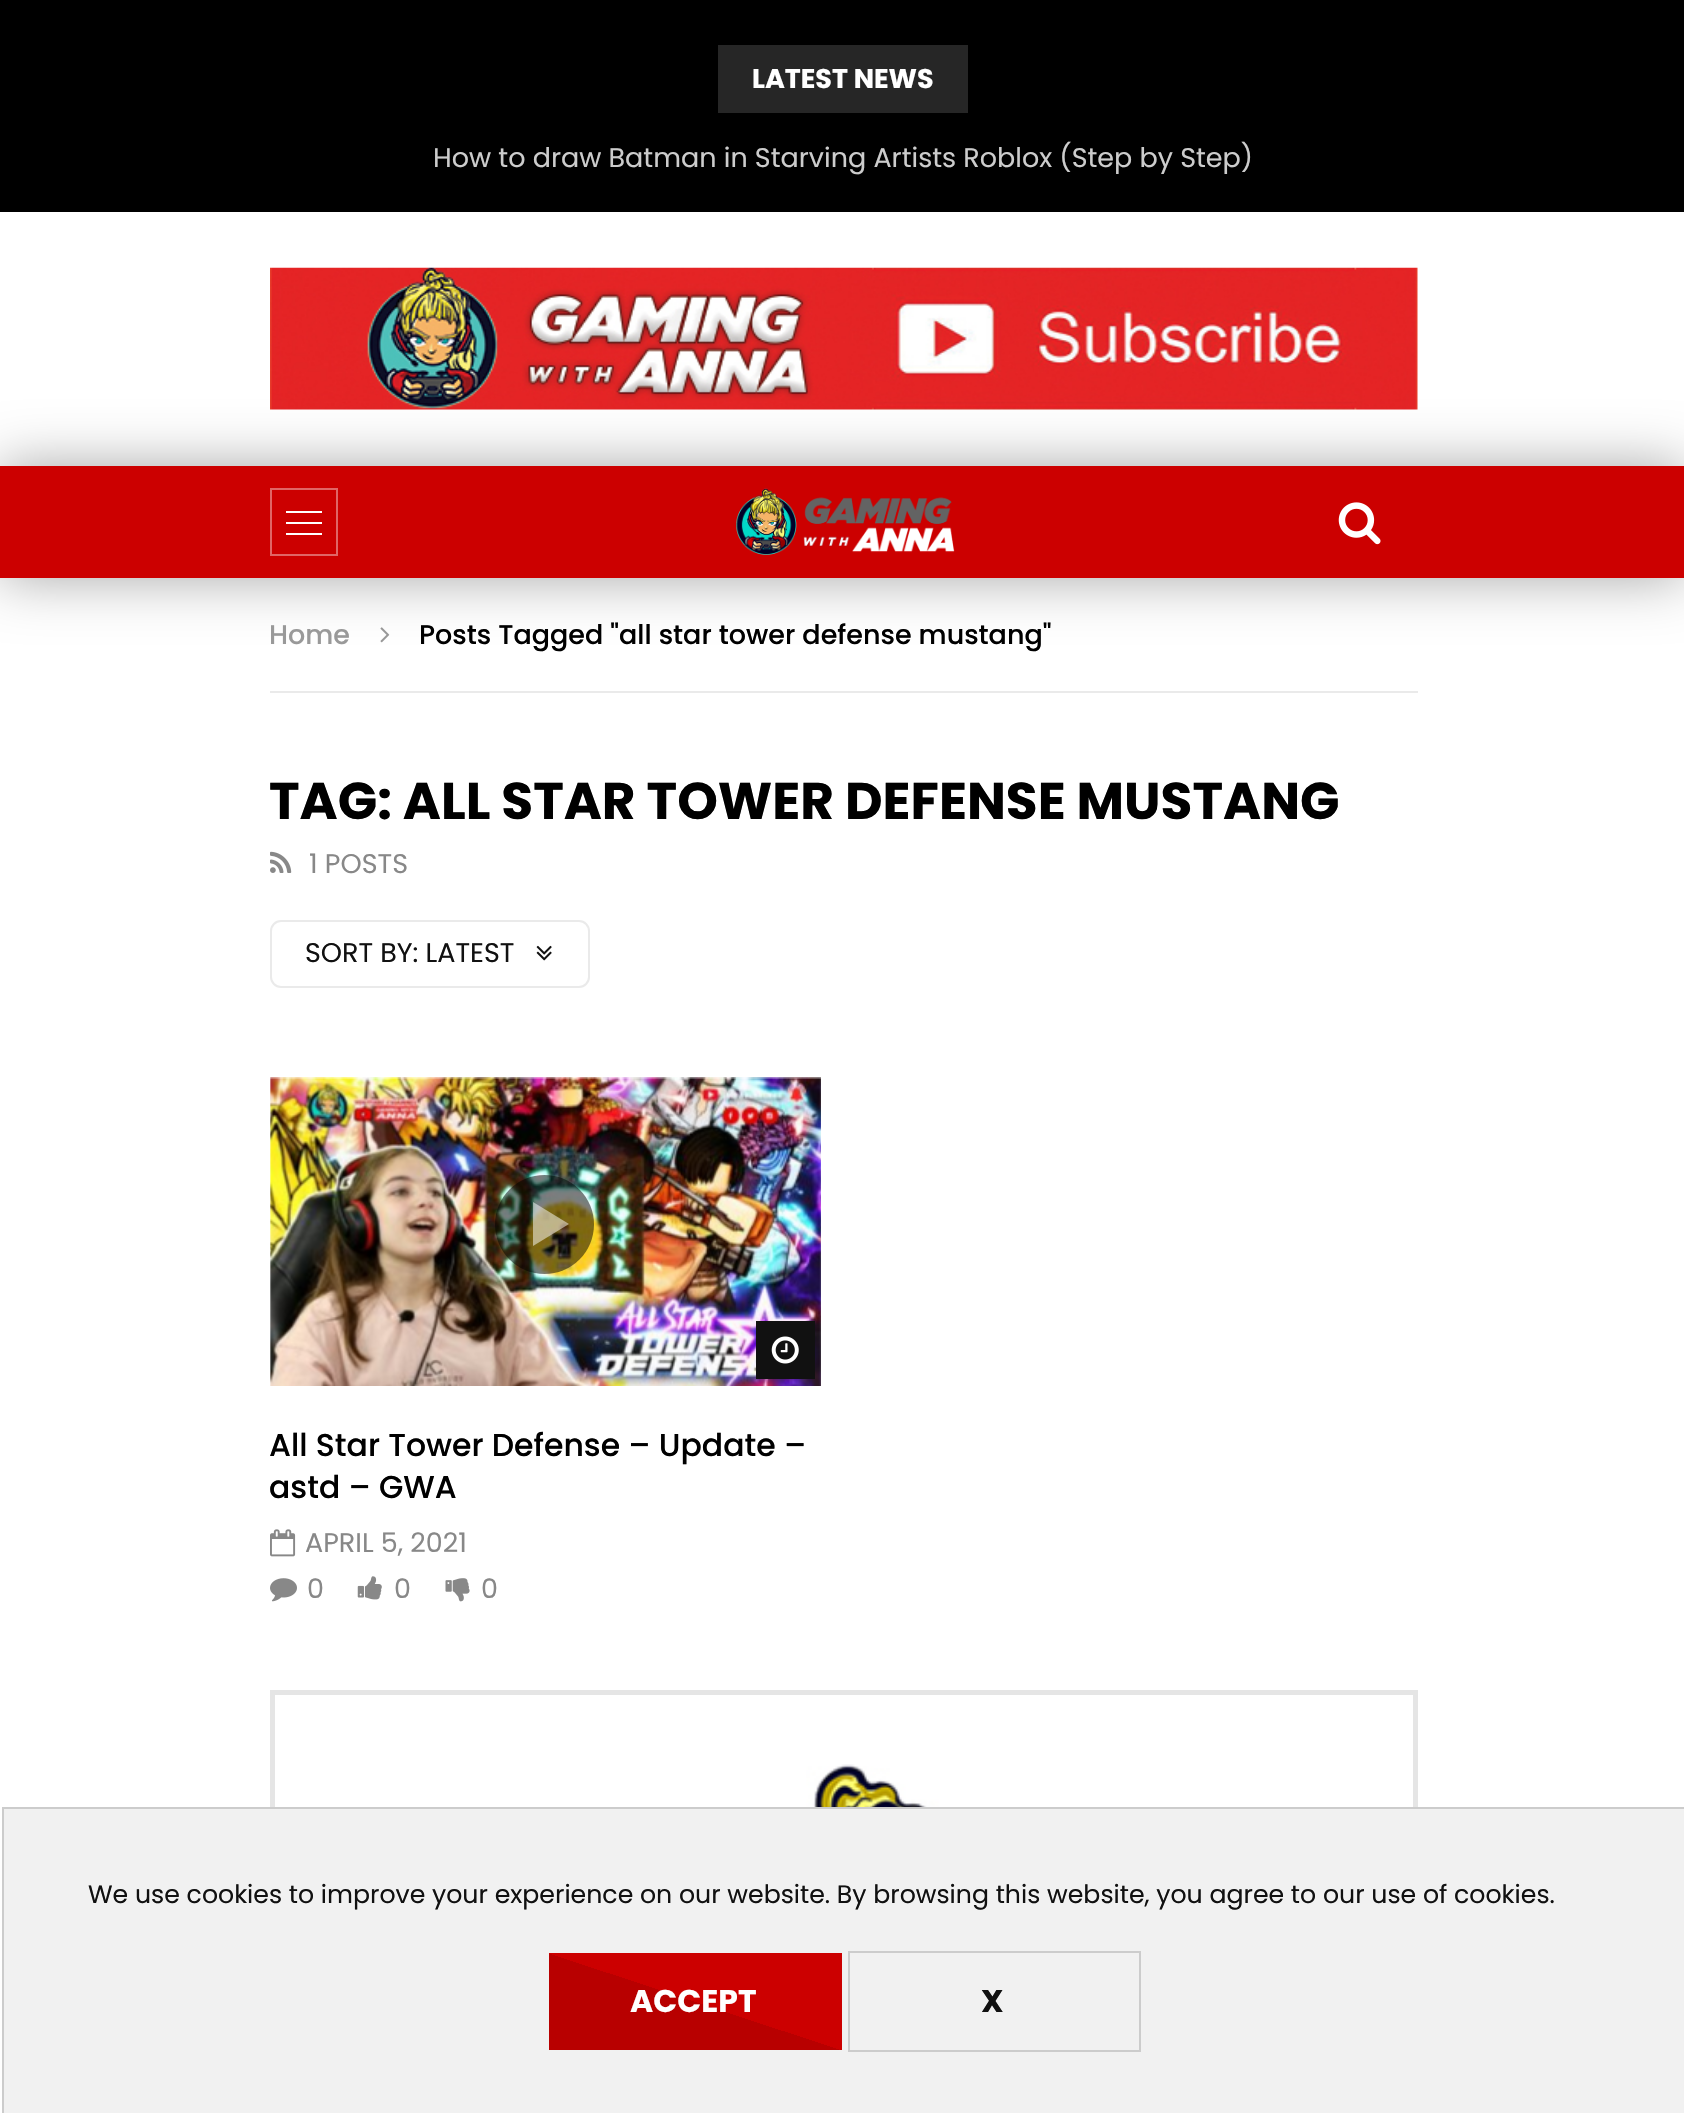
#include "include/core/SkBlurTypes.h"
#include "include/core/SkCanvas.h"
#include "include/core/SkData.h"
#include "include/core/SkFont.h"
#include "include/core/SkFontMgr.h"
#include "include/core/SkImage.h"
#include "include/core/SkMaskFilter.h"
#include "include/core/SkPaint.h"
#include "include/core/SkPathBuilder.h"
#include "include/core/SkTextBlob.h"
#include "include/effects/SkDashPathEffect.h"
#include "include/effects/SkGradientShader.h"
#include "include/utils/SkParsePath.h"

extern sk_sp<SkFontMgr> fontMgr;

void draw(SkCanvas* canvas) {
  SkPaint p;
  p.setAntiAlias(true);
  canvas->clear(SK_ColorWHITE);
  p.setColor(SK_ColorBLACK);
  canvas->drawRect(SkRect::MakeLTRB(0, 0, 1684, 212), p);
  p.setColor(SkColorSetRGB(38, 38, 38));
  canvas->drawRect(SkRect::MakeLTRB(718, 45, 968, 113), p);
  canvas->drawImageRect(SkImages::DeferredFromEncodedData(SkData::MakeFromFileName("images/1.png")), SkRect::MakeLTRB(270, 267, 1418, 410), SkSamplingOptions());
  canvas->drawImageRect(SkImages::DeferredFromEncodedData(SkData::MakeFromFileName("images/4.png")), SkRect::MakeLTRB(380, 627, 390, 643), SkSamplingOptions());
  p.setColor(SkColorSetARGB(89, 0, 0, 0));
  p.setMaskFilter(SkMaskFilter::MakeBlur(kNormal_SkBlurStyle, 28));
  canvas->drawRect(SkRect::MakeLTRB(0, 466, 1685, 578), p);
  p.setMaskFilter(nullptr);
  p.setColor(SkColorSetRGB(204, 0, 0));
  canvas->drawRect(SkRect::MakeLTRB(0, 466, 1684, 578), p);
  p.setStyle(SkPaint::kStroke_Style);
  p.setStrokeWidth(2);
  p.setColor(SkColorSetRGB(224, 102, 102));
  canvas->drawRect(SkRect::MakeLTRB(271, 489, 337, 555), p);
  p.setStyle(SkPaint::kFill_Style);
  p.setColor(SK_ColorWHITE);
  canvas->drawRect(SkRect::MakeLTRB(286, 511, 322, 513), p);
  canvas->drawRect(SkRect::MakeLTRB(286, 522, 322, 524), p);
  canvas->drawRect(SkRect::MakeLTRB(286, 533, 322, 535), p);
  canvas->drawImageRect(SkImages::DeferredFromEncodedData(SkData::MakeFromFileName("images/2.png")), SkRect::MakeLTRB(736, 488, 955, 555), SkSamplingOptions());
  canvas->drawImageRect(SkImages::DeferredFromEncodedData(SkData::MakeFromFileName("images/3.png")), SkRect::MakeLTRB(1338, 502, 1381, 545), SkSamplingOptions());
  p.setColor(SkColorSetRGB(234, 234, 234));
  canvas->drawRect(SkRect::MakeLTRB(270, 691, 1418, 693), p);
  canvas->drawImageRect(SkImages::DeferredFromEncodedData(SkData::MakeFromFileName("images/5.png")), SkRect::MakeLTRB(270, 851, 292, 873), SkSamplingOptions());
  p.setStyle(SkPaint::kStroke_Style);
  canvas->drawRoundRect(SkRect::MakeLTRB(271, 921, 589, 987), 10, 10, p);
  canvas->drawImageRect(SkImages::DeferredFromEncodedData(SkData::MakeFromFileName("images/6.png")), SkRect::MakeLTRB(536, 945, 552, 961), SkSamplingOptions());
  canvas->drawImageRect(SkImages::DeferredFromEncodedData(SkData::MakeFromFileName("images/7.png")), SkRect::MakeLTRB(270, 1077, 821, 1386), SkSamplingOptions());
  p.setStyle(SkPaint::kFill_Style);
  p.setColor(SkColorSetARGB(128, 0, 0, 0));
  canvas->drawCircle(544.5f, 1224.5f, 49.5f, p);
  p.setColor(SkColorSetARGB(128, 255, 255, 255));
  canvas->drawPath(SkPathBuilder().moveTo(533, 1246).lineTo(533, 1202).lineTo(569, 1224).close().detach(), p);
  p.setColor(SkColorSetRGB(17, 17, 17));
  canvas->drawRect(SkRect::MakeLTRB(756, 1321, 815, 1379), p);
  canvas->drawImageRect(SkImages::DeferredFromEncodedData(SkData::MakeFromFileName("images/8.png")), SkRect::MakeLTRB(771, 1336, 799, 1364), SkSamplingOptions());
  canvas->drawImageRect(SkImages::DeferredFromEncodedData(SkData::MakeFromFileName("images/9.png")), SkRect::MakeLTRB(270, 1529, 296, 1557), SkSamplingOptions());
  canvas->drawImageRect(SkImages::DeferredFromEncodedData(SkData::MakeFromFileName("images/10.png")), SkRect::MakeLTRB(270, 1578, 297, 1602), SkSamplingOptions());
  canvas->drawImageRect(SkImages::DeferredFromEncodedData(SkData::MakeFromFileName("images/11.png")), SkRect::MakeLTRB(357, 1576, 382, 1600), SkSamplingOptions());
  canvas->drawImageRect(SkImages::DeferredFromEncodedData(SkData::MakeFromFileName("images/12.png")), SkRect::MakeLTRB(445, 1578, 470, 1602), SkSamplingOptions());
  p.setStyle(SkPaint::kStroke_Style);
  p.setStrokeWidth(5);
  p.setColor(SkColorSetRGB(229, 229, 229));
  canvas->drawRect(SkRect::MakeLTRB(272.5f, 1692.5f, 1415.5f, 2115.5f), p);
  canvas->drawImageRect(SkImages::DeferredFromEncodedData(SkData::MakeFromFileName("images/13.png")), SkRect::MakeLTRB(607, 1764, 1097, 1807), SkSamplingOptions());
  p.setStyle(SkPaint::kFill_Style);
  p.setColor(SkColorSetRGB(241, 241, 241));
  canvas->drawRect(SkRect::MakeLTRB(3, 1808, 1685, 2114), p);
  p.setStyle(SkPaint::kStroke_Style);
  p.setStrokeWidth(2);
  p.setColor(SkColorSetRGB(204, 204, 204));
  canvas->drawRect(SkRect::MakeLTRB(3, 1808, 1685, 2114), p);
  p.setStyle(SkPaint::kFill_Style);
  {
    const SkColor colors[] = {SkColorSetRGB(204, 0, 0), SkColorSetRGB(184, 0, 0)};
    const float stops[] = {0.5f, 0.5f};
    const SkPoint ends[] = {{723, 1914}, {665, 2089}};
    p.setShader(SkGradientShader::MakeLinear(ends, colors, stops, 2, SkTileMode::kClamp));
    p.setAlpha(255);
  }
  canvas->drawRect(SkRect::MakeLTRB(549, 1953, 842, 2050), p);
  p.setStyle(SkPaint::kStroke_Style);
  p.setShader(nullptr);
  p.setColor(SkColorSetRGB(204, 204, 204));
  canvas->drawRect(SkRect::MakeLTRB(849, 1952, 1140, 2051), p);
  SkFont font1(fontMgr->matchFamilyStyle("Poppins", SkFontStyle::Bold()), 27);
  font1.setSubpixel(true);
  p.setStyle(SkPaint::kFill_Style);
  p.setColor(SK_ColorWHITE);
  canvas->drawString("LATEST NEWS", 752, 88, font1, p);
  SkFont font2(fontMgr->matchFamilyStyle("Poppins", SkFontStyle::Normal()), 27);
  font2.setSubpixel(true);
  p.setColor(SkColorSetRGB(204, 204, 204));
  canvas->drawString("How to draw Batman in Starving Artists Roblox (Step by Step)", 433, 167, font2, p);
  SkFont font3(fontMgr->matchFamilyStyle("Poppins", SkFontStyle(500, SkFontStyle::kNormal_Width, SkFontStyle::kUpright_Slant)), 27);
  font3.setSubpixel(true);
  p.setColor(SkColorSetRGB(153, 153, 153));
  canvas->drawString("Home", 269, 644, font3, p);
  p.setColor(SK_ColorBLACK);
  canvas->drawString("Posts Tagged \"all star tower defense mustang\"", 419, 644, font3, p);
  SkFont font4(fontMgr->matchFamilyStyle("Poppins", SkFontStyle::Bold()), 51.75f);
  font4.setSubpixel(true);
  canvas->drawString("TAG: ALL STAR TOWER DEFENSE MUSTANG", 269, 819, font4, p);
  p.setColor(SkColorSetRGB(136, 136, 136));
  canvas->drawString("1 POSTS", 309, 873, font2, p);
  p.setColor(SkColorSetRGB(17, 17, 17));
  canvas->drawString("SORT BY: LATEST", 305, 962, font2, p);
  SkFont font5(fontMgr->matchFamilyStyle("Poppins", SkFontStyle(500, SkFontStyle::kNormal_Width, SkFontStyle::kUpright_Slant)), 31.5f);
  font5.setSubpixel(true);
  p.setColor(SK_ColorBLACK);
  canvas->drawString("All Star Tower Defense – Update –", 269, 1456, font5, p);
  canvas->drawString("astd – GWA", 269, 1498, font5, p);
  p.setColor(SkColorSetRGB(136, 136, 136));
  canvas->drawString("APRIL 5, 2021", 305, 1552, font2, p);
  canvas->drawString("0", 307, 1598, font2, p);
  canvas->drawString("0", 394, 1598, font2, p);
  canvas->drawString("0", 481, 1598, font2, p);
  SkFont font6(fontMgr->matchFamilyStyle("Poppins", SkFontStyle::Normal()), 25.2f);
  font6.setSubpixel(true);
  p.setColor(SkColorSetRGB(17, 17, 17));
  canvas->drawString("We use cookies to improve your experience on our website. By browsing this website, you agree to our use of cookies.", 88, 1903, font6, p);
  SkFont font7(fontMgr->matchFamilyStyle("Poppins", SkFontStyle::Bold()), 31.5f);
  font7.setSubpixel(true);
  p.setColor(SK_ColorWHITE);
  canvas->drawString("ACCEPT", 630, 2012, font7, p);
  p.setColor(SkColorSetRGB(17, 17, 17));
  canvas->drawString("X", 981, 2012, font7, p);
}
